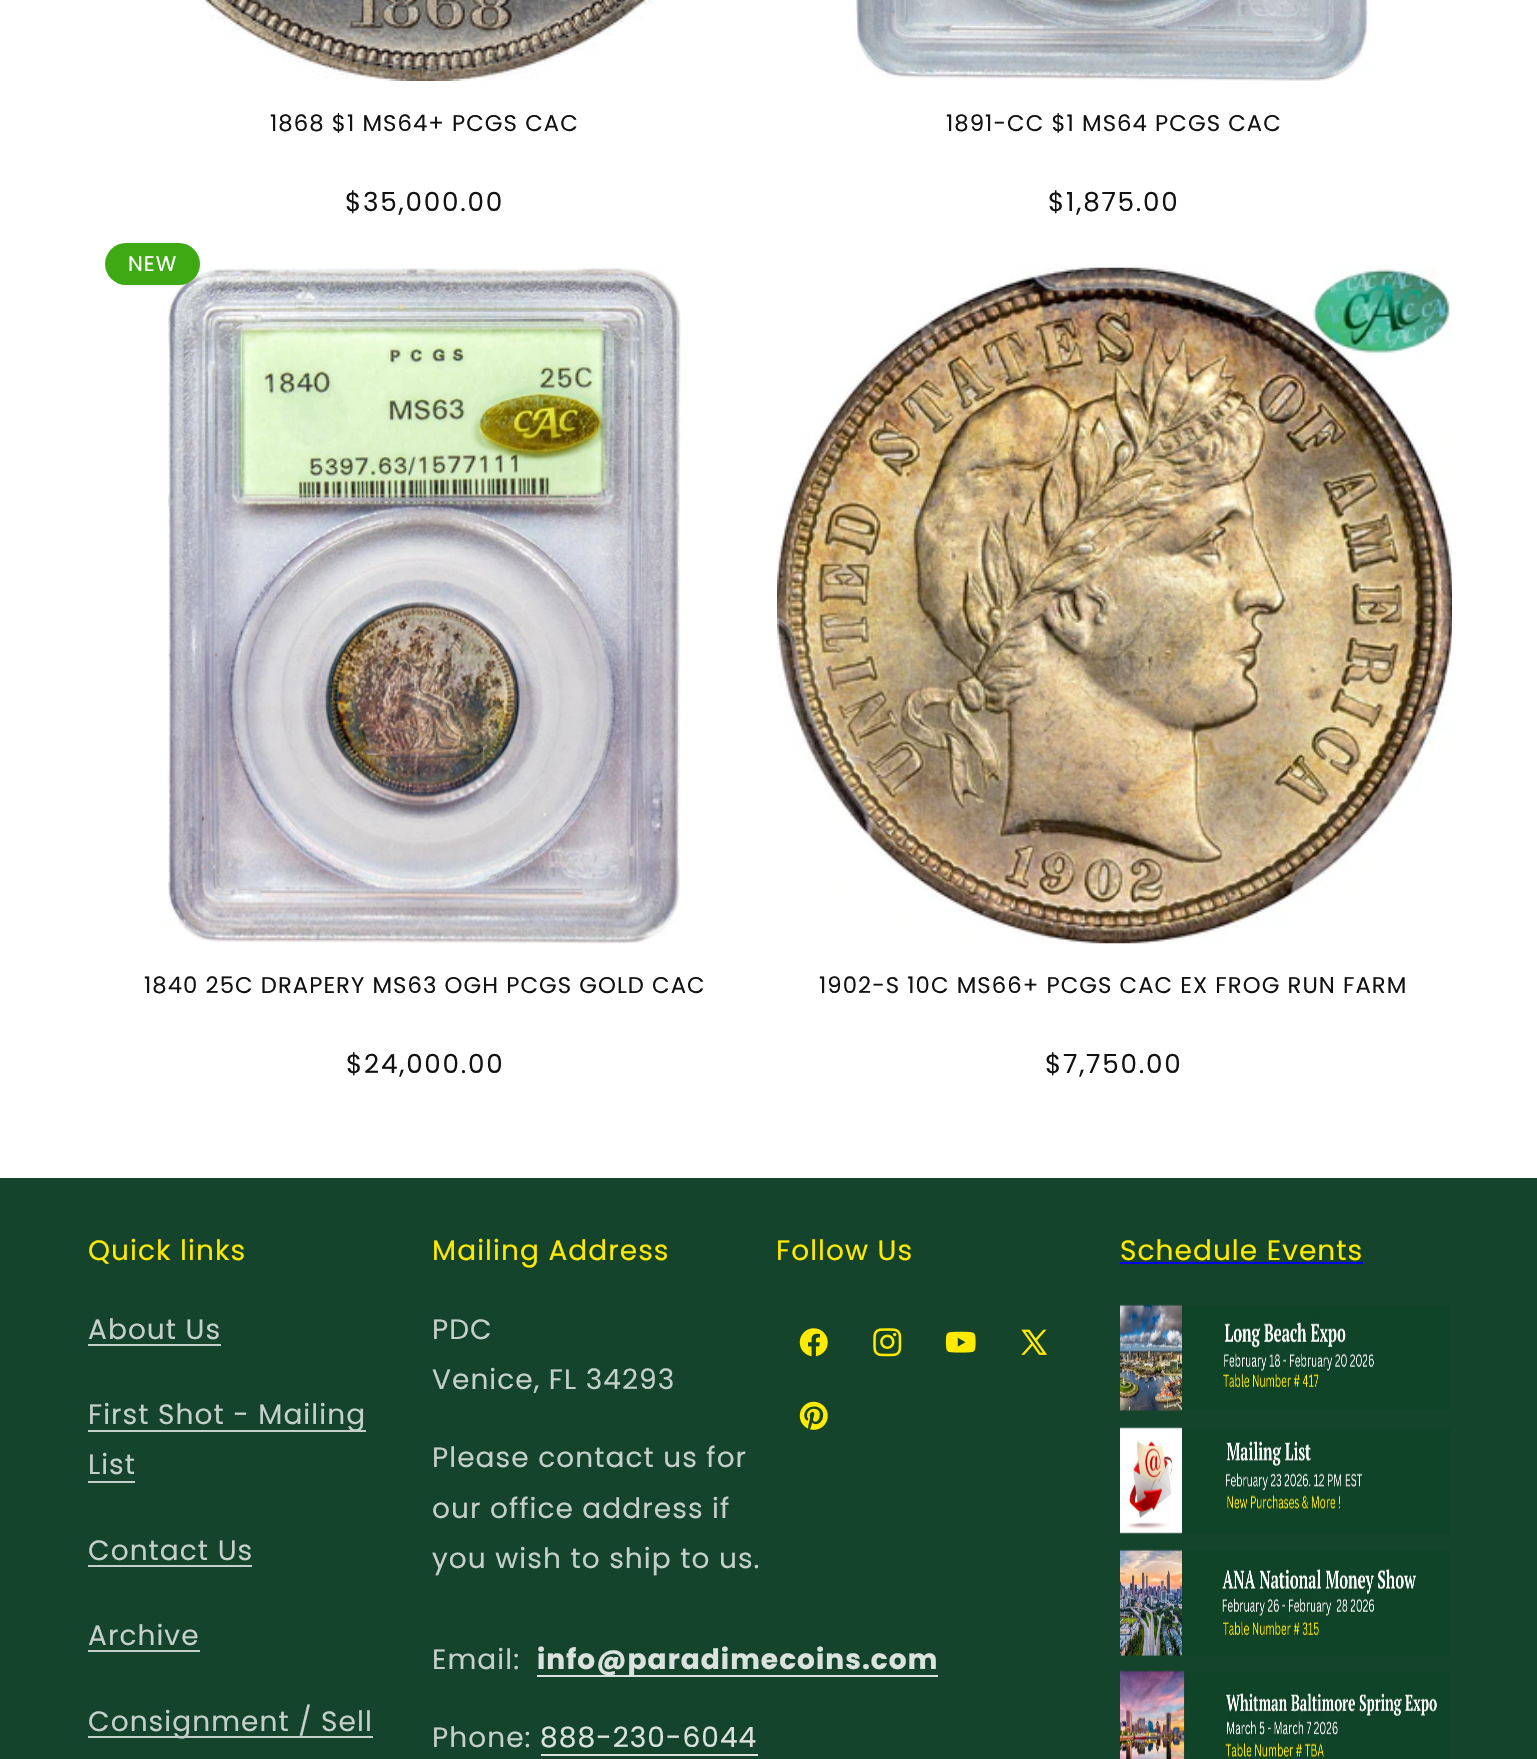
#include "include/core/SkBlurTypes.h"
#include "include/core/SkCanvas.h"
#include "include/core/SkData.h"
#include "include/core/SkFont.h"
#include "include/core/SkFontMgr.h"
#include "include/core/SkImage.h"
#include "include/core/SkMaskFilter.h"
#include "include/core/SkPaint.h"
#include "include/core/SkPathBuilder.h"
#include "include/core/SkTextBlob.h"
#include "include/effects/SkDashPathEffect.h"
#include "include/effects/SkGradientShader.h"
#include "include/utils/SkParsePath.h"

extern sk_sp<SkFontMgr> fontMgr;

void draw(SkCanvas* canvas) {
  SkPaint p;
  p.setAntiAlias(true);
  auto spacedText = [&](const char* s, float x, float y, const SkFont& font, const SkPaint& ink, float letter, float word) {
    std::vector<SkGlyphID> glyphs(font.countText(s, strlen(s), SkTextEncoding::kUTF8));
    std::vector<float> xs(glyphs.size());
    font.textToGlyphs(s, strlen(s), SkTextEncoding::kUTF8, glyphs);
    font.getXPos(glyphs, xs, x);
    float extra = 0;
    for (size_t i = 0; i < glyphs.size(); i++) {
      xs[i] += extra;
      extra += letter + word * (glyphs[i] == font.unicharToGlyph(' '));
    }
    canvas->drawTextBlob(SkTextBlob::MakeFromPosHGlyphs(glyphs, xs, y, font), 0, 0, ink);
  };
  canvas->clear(SK_ColorWHITE);
  canvas->drawImageRect(SkImages::DeferredFromEncodedData(SkData::MakeFromFileName("images/1.png")), SkRect::MakeLTRB(200, 0, 656, 81), SkSamplingOptions());
  canvas->drawImageRect(SkImages::DeferredFromEncodedData(SkData::MakeFromFileName("images/2.png")), SkRect::MakeLTRB(856, 0, 1372, 81), SkSamplingOptions());
  canvas->drawImageRect(SkImages::DeferredFromEncodedData(SkData::MakeFromFileName("images/3.png")), SkRect::MakeLTRB(168, 267, 681, 944), SkSamplingOptions());
  p.setColor(SkColorSetRGB(63, 169, 19));
  canvas->drawRoundRect(SkRect::MakeLTRB(105, 243, 200, 285), 21, 21, p);
  canvas->drawImageRect(SkImages::DeferredFromEncodedData(SkData::MakeFromFileName("images/4.png")), SkRect::MakeLTRB(777, 267, 1452, 944), SkSamplingOptions());
  p.setColor(SkColorSetRGB(21, 68, 44));
  canvas->drawRect(SkRect::MakeLTRB(0, 1178, 1537, 1759), p);
  p.setColor(SkColorSetRGB(197, 208, 202));
  canvas->drawRect(SkRect::MakeLTRB(88, 1344, 221, 1346), p);
  canvas->drawRect(SkRect::MakeLTRB(88, 1430, 366, 1432), p);
  canvas->drawRect(SkRect::MakeLTRB(88, 1481, 135, 1483), p);
  canvas->drawRect(SkRect::MakeLTRB(88, 1565, 252, 1567), p);
  canvas->drawRect(SkRect::MakeLTRB(88, 1650, 200, 1652), p);
  canvas->drawRect(SkRect::MakeLTRB(88, 1736, 373, 1738), p);
  p.setColor(SkColorSetRGB(220, 227, 223));
  canvas->drawRect(SkRect::MakeLTRB(537, 1675, 938, 1677), p);
  canvas->drawRect(SkRect::MakeLTRB(541, 1754, 758, 1756), p);
  canvas->drawImageRect(SkImages::DeferredFromEncodedData(SkData::MakeFromFileName("images/5.png")), SkRect::MakeLTRB(799, 1328, 828, 1357), SkSamplingOptions());
  canvas->drawImageRect(SkImages::DeferredFromEncodedData(SkData::MakeFromFileName("images/6.png")), SkRect::MakeLTRB(873, 1328, 902, 1357), SkSamplingOptions());
  canvas->drawImageRect(SkImages::DeferredFromEncodedData(SkData::MakeFromFileName("images/7.png")), SkRect::MakeLTRB(945, 1331, 976, 1353), SkSamplingOptions());
  canvas->drawImageRect(SkImages::DeferredFromEncodedData(SkData::MakeFromFileName("images/8.png")), SkRect::MakeLTRB(1021, 1329, 1048, 1355), SkSamplingOptions());
  canvas->drawImageRect(SkImages::DeferredFromEncodedData(SkData::MakeFromFileName("images/9.png")), SkRect::MakeLTRB(799, 1401, 828, 1430), SkSamplingOptions());
  p.setColor(SkColorSetRGB(0, 0, 238));
  canvas->drawRect(SkRect::MakeLTRB(1120, 1262, 1363, 1264), p);
  canvas->drawImageRect(SkImages::DeferredFromEncodedData(SkData::MakeFromFileName("images/10.png")), SkRect::MakeLTRB(1120, 1304, 1451, 1411), SkSamplingOptions());
  canvas->drawImageRect(SkImages::DeferredFromEncodedData(SkData::MakeFromFileName("images/11.png")), SkRect::MakeLTRB(1120, 1427, 1451, 1534), SkSamplingOptions());
  canvas->drawImageRect(SkImages::DeferredFromEncodedData(SkData::MakeFromFileName("images/12.png")), SkRect::MakeLTRB(1120, 1549, 1451, 1656), SkSamplingOptions());
  canvas->drawImageRect(SkImages::DeferredFromEncodedData(SkData::MakeFromFileName("images/13.png")), SkRect::MakeLTRB(1120, 1670, 1451, 1759), SkSamplingOptions());
  SkFont font1(fontMgr->matchFamilyStyle("Poppins", SkFontStyle::Normal()), 22.75f);
  font1.setSubpixel(true);
  p.setColor(SkColorSetRGB(18, 18, 18));
  spacedText("1868 $1 MS64+ PCGS CAC", 270, 131, font1, p, 1.05f, 0);
  SkFont font2(fontMgr->matchFamilyStyle("Poppins", SkFontStyle::Normal()), 26.25f);
  font2.setSubpixel(true);
  spacedText("$35,000.00", 345, 211, font2, p, 1.75f, 0);
  spacedText("1891-CC $1 MS64 PCGS CAC", 946, 131, font1, p, 1.05f, 0);
  spacedText("$1,875.00", 1048, 211, font2, p, 1.75f, 0);
  SkFont font3(fontMgr->matchFamilyStyle("Poppins", SkFontStyle::Normal()), 21);
  font3.setSubpixel(true);
  p.setColor(SK_ColorWHITE);
  spacedText("NEW", 128, 271, font3, p, 1.05f, 0);
  p.setColor(SkColorSetRGB(18, 18, 18));
  spacedText("1840 25C DRAPERY MS63 OGH PCGS GOLD CAC", 144, 993, font1, p, 1.05f, 0);
  spacedText("$24,000.00", 346, 1073, font2, p, 1.75f, 0);
  spacedText("1902-S 10C MS66+ PCGS CAC EX FROG RUN FARM", 819, 993, font1, p, 1.05f, 0);
  spacedText("$7,750.00", 1045, 1073, font2, p, 1.75f, 0);
  SkFont font4(fontMgr->matchFamilyStyle("Poppins", SkFontStyle::Normal()), 28);
  font4.setSubpixel(true);
  p.setColor(SkColorSetRGB(255, 234, 0));
  spacedText("Quick links", 88, 1260, font4, p, 1.05f, 0);
  p.setColor(SkColorSetRGB(197, 208, 202));
  spacedText("About Us", 88, 1339, font4, p, 1.05f, 0);
  spacedText("First Shot - Mailing", 88, 1424, font4, p, 1.05f, 0);
  spacedText("List", 88, 1474, font4, p, 1.05f, 0);
  spacedText("Contact Us", 88, 1560, font4, p, 1.05f, 0);
  spacedText("Archive", 88, 1645, font4, p, 1.05f, 0);
  spacedText("Consignment / Sell", 88, 1731, font4, p, 1.05f, 0);
  p.setColor(SkColorSetRGB(255, 234, 0));
  spacedText("Mailing Address", 432, 1260, font4, p, 1.05f, 0);
  p.setColor(SkColorSetRGB(197, 208, 202));
  spacedText("PDC", 432, 1339, font4, p, 1.05f, 0);
  spacedText("Venice, FL 34293", 432, 1389, font4, p, 1.05f, 0);
  spacedText("Please contact us for", 432, 1467, font4, p, 1.05f, 0);
  spacedText("our office address if", 432, 1518, font4, p, 1.05f, 0);
  spacedText("you wish to ship to us.", 432, 1568, font4, p, 1.05f, 0);
  spacedText("Email:", 432, 1669, font4, p, 1.05f, 0);
  SkFont font5(fontMgr->matchFamilyStyle("Poppins", SkFontStyle::Bold()), 28);
  font5.setSubpixel(true);
  p.setColor(SkColorSetRGB(220, 227, 223));
  spacedText("info@paradimecoins.com", 537, 1669, font5, p, 1.05f, 0);
  p.setColor(SkColorSetRGB(197, 208, 202));
  spacedText("Phone:", 432, 1747, font4, p, 1.05f, 0);
  p.setColor(SkColorSetRGB(220, 227, 223));
  spacedText("888-230-6044", 540, 1747, font4, p, 1.05f, 0);
  p.setColor(SkColorSetRGB(255, 234, 0));
  spacedText("Follow Us", 776, 1260, font4, p, 1.05f, 0);
  spacedText("Schedule Events", 1120, 1260, font4, p, 1.05f, 0);
}
